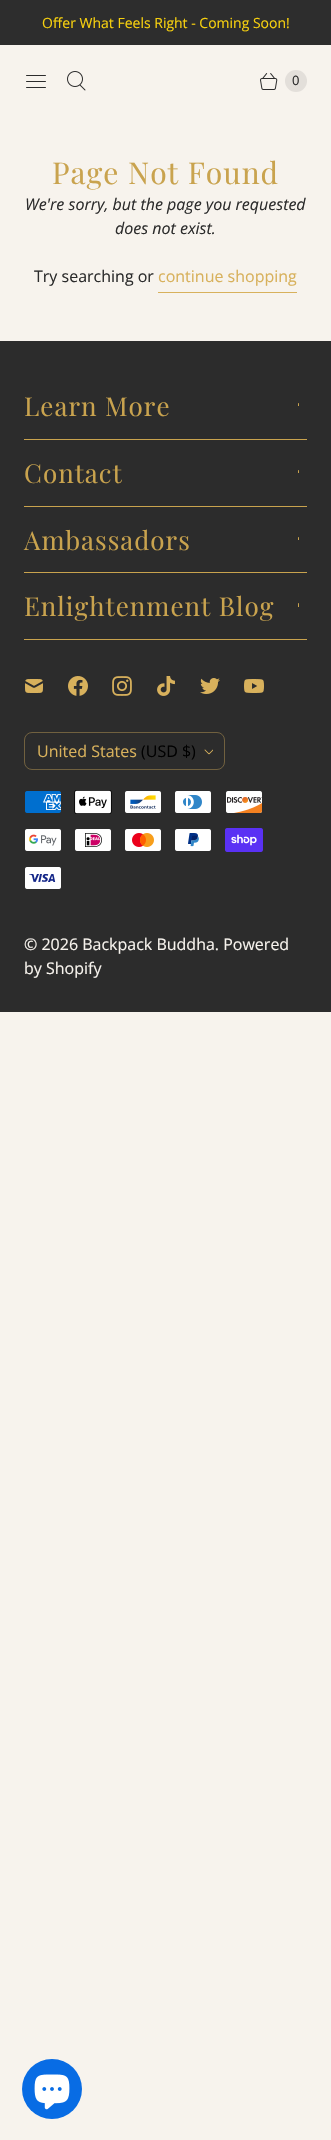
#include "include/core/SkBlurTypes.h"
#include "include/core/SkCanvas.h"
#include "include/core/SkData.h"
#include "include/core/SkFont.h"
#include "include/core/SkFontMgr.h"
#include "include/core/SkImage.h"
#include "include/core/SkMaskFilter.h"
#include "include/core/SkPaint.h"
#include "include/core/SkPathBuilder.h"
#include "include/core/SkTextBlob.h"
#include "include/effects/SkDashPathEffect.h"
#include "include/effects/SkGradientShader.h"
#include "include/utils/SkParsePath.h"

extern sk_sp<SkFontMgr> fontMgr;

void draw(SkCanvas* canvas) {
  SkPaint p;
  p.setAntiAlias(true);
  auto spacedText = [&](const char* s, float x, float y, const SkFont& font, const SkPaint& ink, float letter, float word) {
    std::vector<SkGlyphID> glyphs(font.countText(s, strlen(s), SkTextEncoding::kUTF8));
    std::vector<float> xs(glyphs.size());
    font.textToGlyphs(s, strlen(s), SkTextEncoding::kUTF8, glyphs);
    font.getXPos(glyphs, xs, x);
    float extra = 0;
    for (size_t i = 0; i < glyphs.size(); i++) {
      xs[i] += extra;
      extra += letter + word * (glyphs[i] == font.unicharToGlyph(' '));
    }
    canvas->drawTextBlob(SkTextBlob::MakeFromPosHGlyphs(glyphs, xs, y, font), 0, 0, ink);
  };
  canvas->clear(SkColorSetRGB(247, 243, 237));
  p.setColor(SkColorSetRGB(45, 45, 45));
  canvas->drawRect(SkRect::MakeLTRB(0, 0, 331, 45), p);
  canvas->drawImageRect(SkImages::DeferredFromEncodedData(SkData::MakeFromFileName("images/1.png")), SkRect::MakeLTRB(26, 75, 46, 88), SkSamplingOptions());
  canvas->drawImageRect(SkImages::DeferredFromEncodedData(SkData::MakeFromFileName("images/2.png")), SkRect::MakeLTRB(67, 71, 86, 91), SkSamplingOptions());
  canvas->drawImageRect(SkImages::DeferredFromEncodedData(SkData::MakeFromFileName("images/3.png")), SkRect::MakeLTRB(260, 73, 278, 90), SkSamplingOptions());
  p.setColor(SkColorSetRGB(227, 223, 218));
  canvas->drawCircle(296, 81, 11, p);
  p.setColor(SkColorSetRGB(216, 177, 92));
  canvas->drawRect(SkRect::MakeLTRB(158, 292, 297, 293), p);
  p.setColor(SkColorSetRGB(44, 44, 44));
  canvas->drawRect(SkRect::MakeLTRB(0, 341, 331, 1012), p);
  p.setColor(SkColorSetRGB(201, 163, 78));
  canvas->drawRect(SkRect::MakeLTRB(24, 439, 307, 440), p);
  canvas->drawImageRect(SkImages::DeferredFromEncodedData(SkData::MakeFromFileName("images/4.png")), SkRect::MakeLTRB(298, 403, 299, 406), SkSamplingOptions());
  canvas->drawRect(SkRect::MakeLTRB(24, 506, 307, 507), p);
  canvas->drawImageRect(SkImages::DeferredFromEncodedData(SkData::MakeFromFileName("images/4.png")), SkRect::MakeLTRB(298, 470, 299, 473), SkSamplingOptions());
  canvas->drawRect(SkRect::MakeLTRB(24, 572, 307, 573), p);
  canvas->drawImageRect(SkImages::DeferredFromEncodedData(SkData::MakeFromFileName("images/4.png")), SkRect::MakeLTRB(298, 537, 299, 540), SkSamplingOptions());
  canvas->drawRect(SkRect::MakeLTRB(24, 639, 307, 640), p);
  canvas->drawImageRect(SkImages::DeferredFromEncodedData(SkData::MakeFromFileName("images/5.png")), SkRect::MakeLTRB(298, 603, 299, 607), SkSamplingOptions());
  canvas->drawImageRect(SkImages::DeferredFromEncodedData(SkData::MakeFromFileName("images/6.png")), SkRect::MakeLTRB(25, 679, 43, 693), SkSamplingOptions());
  canvas->drawImageRect(SkImages::DeferredFromEncodedData(SkData::MakeFromFileName("images/7.png")), SkRect::MakeLTRB(68, 676, 88, 696), SkSamplingOptions());
  canvas->drawImageRect(SkImages::DeferredFromEncodedData(SkData::MakeFromFileName("images/8.png")), SkRect::MakeLTRB(112, 676, 132, 696), SkSamplingOptions());
  canvas->drawImageRect(SkImages::DeferredFromEncodedData(SkData::MakeFromFileName("images/9.png")), SkRect::MakeLTRB(157, 676, 175, 696), SkSamplingOptions());
  canvas->drawImageRect(SkImages::DeferredFromEncodedData(SkData::MakeFromFileName("images/10.png")), SkRect::MakeLTRB(200, 678, 220, 694), SkSamplingOptions());
  canvas->drawImageRect(SkImages::DeferredFromEncodedData(SkData::MakeFromFileName("images/11.png")), SkRect::MakeLTRB(244, 679, 264, 693), SkSamplingOptions());
  p.setStyle(SkPaint::kStroke_Style);
  p.setStrokeWidth(1);
  p.setColor(SkColorSetRGB(113, 97, 63));
  canvas->drawRoundRect(SkRect::MakeLTRB(24.5f, 732.5f, 224.5f, 769.5f), 7.5f, 7.5f, p);
  canvas->drawImageRect(SkImages::DeferredFromEncodedData(SkData::MakeFromFileName("images/12.png")), SkRect::MakeLTRB(204, 749, 213, 755), SkSamplingOptions());
  canvas->drawImageRect(SkImages::DeferredFromEncodedData(SkData::MakeFromFileName("images/13.png")), SkRect::MakeLTRB(25, 791, 61, 813), SkSamplingOptions());
  canvas->drawImageRect(SkImages::DeferredFromEncodedData(SkData::MakeFromFileName("images/14.png")), SkRect::MakeLTRB(74, 790, 112, 814), SkSamplingOptions());
  canvas->drawImageRect(SkImages::DeferredFromEncodedData(SkData::MakeFromFileName("images/15.png")), SkRect::MakeLTRB(125, 791, 161, 813), SkSamplingOptions());
  canvas->drawImageRect(SkImages::DeferredFromEncodedData(SkData::MakeFromFileName("images/16.png")), SkRect::MakeLTRB(175, 791, 211, 813), SkSamplingOptions());
  canvas->drawImageRect(SkImages::DeferredFromEncodedData(SkData::MakeFromFileName("images/17.png")), SkRect::MakeLTRB(226, 791, 262, 813), SkSamplingOptions());
  canvas->drawImageRect(SkImages::DeferredFromEncodedData(SkData::MakeFromFileName("images/18.png")), SkRect::MakeLTRB(25, 829, 61, 851), SkSamplingOptions());
  canvas->drawImageRect(SkImages::DeferredFromEncodedData(SkData::MakeFromFileName("images/19.png")), SkRect::MakeLTRB(75, 829, 111, 851), SkSamplingOptions());
  canvas->drawImageRect(SkImages::DeferredFromEncodedData(SkData::MakeFromFileName("images/20.png")), SkRect::MakeLTRB(125, 829, 161, 851), SkSamplingOptions());
  canvas->drawImageRect(SkImages::DeferredFromEncodedData(SkData::MakeFromFileName("images/21.png")), SkRect::MakeLTRB(175, 829, 211, 851), SkSamplingOptions());
  canvas->drawImageRect(SkImages::DeferredFromEncodedData(SkData::MakeFromFileName("images/22.png")), SkRect::MakeLTRB(225, 828, 263, 852), SkSamplingOptions());
  canvas->drawImageRect(SkImages::DeferredFromEncodedData(SkData::MakeFromFileName("images/23.png")), SkRect::MakeLTRB(25, 867, 61, 889), SkSamplingOptions());
  p.setStyle(SkPaint::kFill_Style);
  p.setColor(SkColorSetRGB(8, 108, 228));
  canvas->drawCircle(52, 2089, 30, p);
  canvas->drawImageRect(SkImages::DeferredFromEncodedData(SkData::MakeFromFileName("images/24.png")), SkRect::MakeLTRB(34, 2074, 70, 2110), SkSamplingOptions());
  SkFont font1(fontMgr->matchFamilyStyle("Open Sans", SkFontStyle::Normal()), 14);
  font1.setSubpixel(true);
  p.setColor(SkColorSetRGB(247, 208, 14));
  canvas->drawString("Offer What Feels Right - Coming Soon!", 42, 28, font1, p);
  SkFont font2(fontMgr->matchFamilyStyle("Open Sans", SkFontStyle::Normal()), 13);
  font2.setSubpixel(true);
  p.setColor(SkColorSetRGB(44, 44, 44));
  canvas->drawString("0", 292, 85, font2, p);
  SkFont font3(fontMgr->matchFamilyStyle("Playfair Display", SkFontStyle::Normal()), 30);
  font3.setSubpixel(true);
  p.setColor(SkColorSetRGB(201, 163, 78));
  spacedText("Page Not Found", 52, 184, font3, p, 1, 0);
  SkFont font4(fontMgr->matchFamilyStyle("Open Sans", SkFontStyle::Italic()), 16);
  font4.setSubpixel(true);
  p.setColor(SkColorSetRGB(44, 44, 44));
  canvas->drawString("We're sorry, but the page you requested", 25, 210, font4, p);
  canvas->drawString("does not exist.", 115, 234, font4, p);
  SkFont font5(fontMgr->matchFamilyStyle("Open Sans", SkFontStyle::Normal()), 16);
  font5.setSubpixel(true);
  canvas->drawString("Try searching or", 34, 282, font5, p);
  p.setColor(SkColorSetRGB(216, 177, 92));
  canvas->drawString("continue shopping", 158, 282, font5, p);
  SkFont font6(fontMgr->matchFamilyStyle("Playfair Display", SkFontStyle::Normal()), 26);
  font6.setSubpixel(true);
  p.setColor(SkColorSetRGB(201, 163, 78));
  spacedText("Learn More", 24, 416, font6, p, 1, 0);
  spacedText("Contact", 24, 483, font6, p, 1, 0);
  spacedText("Ambassadors", 24, 550, font6, p, 1, 0);
  spacedText("Enlightenment Blog", 24, 616, font6, p, 1, 0);
  p.setColor(SkColorSetRGB(216, 177, 92));
  canvas->drawString("United States", 37, 757, font5, p);
  p.setColor(SK_ColorBLACK);
  canvas->drawString("(USD $)", 141, 757, font5, p);
  p.setColor(SkColorSetRGB(247, 243, 237));
  canvas->drawString("© 2026 Backpack Buddha. Powered", 24, 950, font5, p);
  canvas->drawString("by Shopify", 24, 974, font5, p);
}
